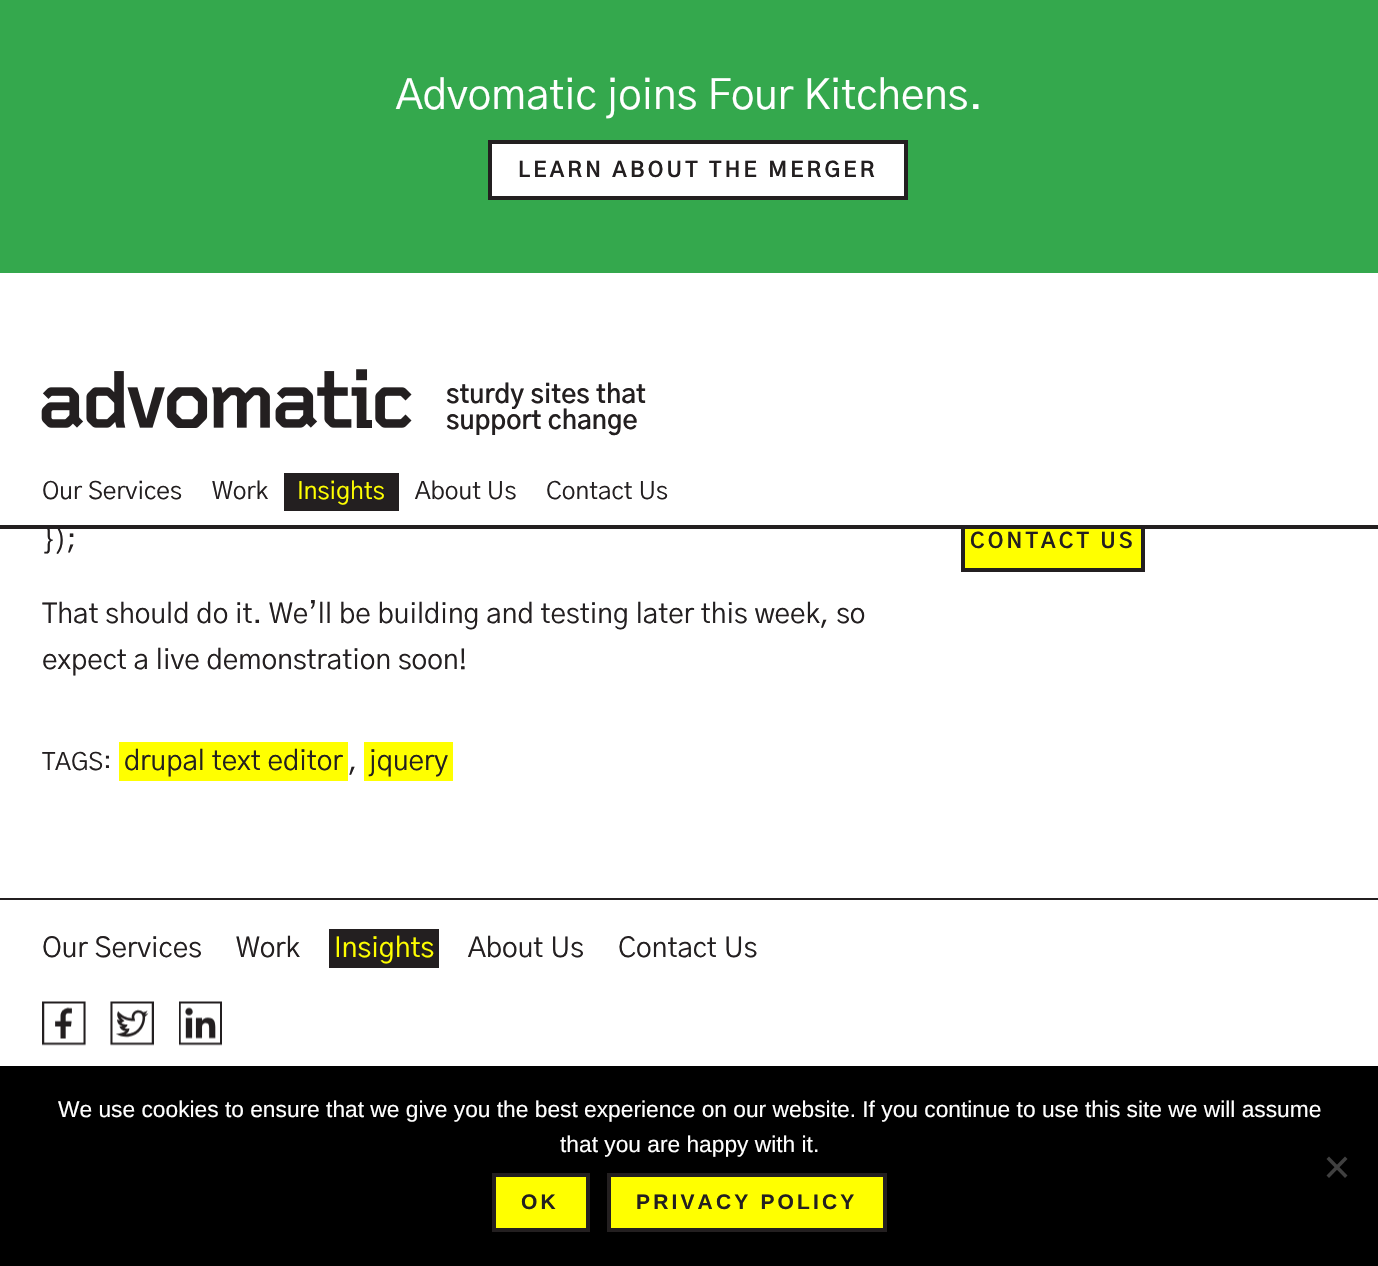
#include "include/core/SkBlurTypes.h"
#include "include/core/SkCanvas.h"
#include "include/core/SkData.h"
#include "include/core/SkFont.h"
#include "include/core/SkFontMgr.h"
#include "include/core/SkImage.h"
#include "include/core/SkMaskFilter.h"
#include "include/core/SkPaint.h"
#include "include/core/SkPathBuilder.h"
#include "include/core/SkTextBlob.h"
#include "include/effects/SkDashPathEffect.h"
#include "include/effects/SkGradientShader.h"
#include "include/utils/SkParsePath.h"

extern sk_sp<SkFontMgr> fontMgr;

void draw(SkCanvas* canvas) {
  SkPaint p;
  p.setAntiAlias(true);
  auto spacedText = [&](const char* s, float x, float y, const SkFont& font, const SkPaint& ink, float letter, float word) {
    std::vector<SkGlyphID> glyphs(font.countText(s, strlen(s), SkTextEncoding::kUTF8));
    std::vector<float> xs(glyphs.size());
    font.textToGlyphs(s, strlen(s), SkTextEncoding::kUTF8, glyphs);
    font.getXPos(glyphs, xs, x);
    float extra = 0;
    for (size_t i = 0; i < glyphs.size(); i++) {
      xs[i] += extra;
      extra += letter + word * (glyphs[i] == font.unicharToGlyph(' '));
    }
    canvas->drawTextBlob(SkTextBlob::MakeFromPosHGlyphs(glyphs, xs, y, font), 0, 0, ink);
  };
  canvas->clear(SK_ColorWHITE);
  p.setColor(SkColorSetRGB(255, 255, 0));
  canvas->drawRect(SkRect::MakeLTRB(965, 529, 1141, 568), p);
  p.setStyle(SkPaint::kStroke_Style);
  p.setStrokeWidth(4);
  p.setColor(SkColorSetRGB(35, 31, 32));
  canvas->drawRect(SkRect::MakeLTRB(963, 511, 1143, 570), p);
  p.setStyle(SkPaint::kFill_Style);
  p.setColor(SK_ColorWHITE);
  canvas->drawRect(SkRect::MakeLTRB(961, 509, 1145, 525), p);
  p.setColor(SkColorSetRGB(52, 168, 77));
  canvas->drawRect(SkRect::MakeLTRB(0, 0, 1378, 273), p);
  p.setColor(SK_ColorWHITE);
  canvas->drawRect(SkRect::MakeLTRB(490, 142, 906, 198), p);
  p.setStyle(SkPaint::kStroke_Style);
  p.setColor(SkColorSetRGB(35, 31, 32));
  canvas->drawRect(SkRect::MakeLTRB(490, 142, 906, 198), p);
  p.setStyle(SkPaint::kFill_Style);
  canvas->drawRect(SkRect::MakeLTRB(0, 525, 1378, 529), p);
  canvas->drawImageRect(SkImages::DeferredFromEncodedData(SkData::MakeFromFileName("images/1.png")), SkRect::MakeLTRB(41, 369, 412, 428), SkSamplingOptions());
  canvas->drawRect(SkRect::MakeLTRB(284, 473, 399, 511), p);
  p.setColor(SkColorSetRGB(255, 255, 0));
  canvas->drawRect(SkRect::MakeLTRB(119, 742, 348, 781), p);
  canvas->drawRect(SkRect::MakeLTRB(364, 742, 453, 781), p);
  p.setColor(SkColorSetRGB(35, 31, 32));
  canvas->drawRect(SkRect::MakeLTRB(0, 898, 1378, 900), p);
  canvas->drawRect(SkRect::MakeLTRB(329, 929, 439, 968), p);
  canvas->drawImageRect(SkImages::DeferredFromEncodedData(SkData::MakeFromFileName("images/2.png")), SkRect::MakeLTRB(42, 1001, 86, 1046), SkSamplingOptions());
  canvas->drawImageRect(SkImages::DeferredFromEncodedData(SkData::MakeFromFileName("images/3.png")), SkRect::MakeLTRB(110, 1001, 154, 1046), SkSamplingOptions());
  canvas->drawImageRect(SkImages::DeferredFromEncodedData(SkData::MakeFromFileName("images/4.png")), SkRect::MakeLTRB(179, 1001, 222, 1046), SkSamplingOptions());
  p.setColor(SK_ColorBLACK);
  canvas->drawRect(SkRect::MakeLTRB(0, 1066, 1378, 1266), p);
  p.setColor(SkColorSetRGB(64, 64, 64));
  canvas->drawPath(SkPathBuilder().moveTo(1345, 1156.5f).lineTo(1347.5f, 1159).lineTo(1329, 1178).lineTo(1326.5f, 1175.5f).close().detach(), p);
  canvas->drawPath(SkPathBuilder().moveTo(1326.5f, 1159).lineTo(1329, 1156.5f).lineTo(1347.5f, 1175.5f).lineTo(1345, 1178).close().detach(), p);
  p.setColor(SkColorSetRGB(255, 255, 0));
  canvas->drawRect(SkRect::MakeLTRB(494, 1175, 588, 1230), p);
  p.setStyle(SkPaint::kStroke_Style);
  p.setColor(SkColorSetRGB(35, 31, 32));
  canvas->drawRect(SkRect::MakeLTRB(494, 1175, 588, 1230), p);
  p.setStyle(SkPaint::kFill_Style);
  p.setColor(SkColorSetRGB(255, 255, 0));
  canvas->drawRect(SkRect::MakeLTRB(609, 1175, 885, 1230), p);
  p.setStyle(SkPaint::kStroke_Style);
  p.setColor(SkColorSetRGB(35, 31, 32));
  canvas->drawRect(SkRect::MakeLTRB(609, 1175, 885, 1230), p);
  SkFont font1(fontMgr->matchFamilyStyle("Gothic A1", SkFontStyle::Normal()), 42);
  font1.setSubpixel(true);
  p.setStyle(SkPaint::kFill_Style);
  p.setColor(SK_ColorWHITE);
  canvas->drawString("Advomatic joins Four Kitchens.", 396, 109, font1, p);
  SkFont font2(fontMgr->matchFamilyStyle("Gothic A1", SkFontStyle::Bold()), 21);
  font2.setSubpixel(true);
  p.setColor(SkColorSetRGB(35, 31, 32));
  spacedText("LEARN ABOUT THE MERGER", 518, 177, font2, p, 3.15f, 0);
  SkFont font3(fontMgr->matchFamilyStyle("Gothic A1", SkFontStyle(600, SkFontStyle::kNormal_Width, SkFontStyle::kUpright_Slant)), 26.25f);
  font3.setSubpixel(true);
  canvas->drawString("sturdy sites that", 446, 403, font3, p);
  canvas->drawString("support change", 446, 429, font3, p);
  SkFont font4(fontMgr->matchFamilyStyle("Gothic A1", SkFontStyle::Normal()), 24.5f);
  font4.setSubpixel(true);
  canvas->drawString("Our Services", 42, 499, font4, p);
  canvas->drawString("Work", 212, 499, font4, p);
  p.setColor(SkColorSetRGB(255, 255, 0));
  canvas->drawString("Insights", 297, 499, font4, p);
  p.setColor(SkColorSetRGB(35, 31, 32));
  canvas->drawString("About Us", 415, 499, font4, p);
  canvas->drawString("Contact Us", 546, 499, font4, p);
  SkFont font5(fontMgr->matchFamilyStyle("Gothic A1", SkFontStyle::Normal()), 28);
  font5.setSubpixel(true);
  canvas->drawString("});", 42, 550, font5, p);
  canvas->drawString("That should do it. We’ll be building and testing later this week, so", 42, 623, font5, p);
  canvas->drawString("expect a live demonstration soon!", 42, 669, font5, p);
  canvas->drawString("TAGS:", 42, 770, font4, p);
  canvas->drawString("drupal text editor", 124, 770, font5, p);
  canvas->drawString(",", 348, 770, font5, p);
  canvas->drawString("jquery", 369, 770, font5, p);
  spacedText("CONTACT US", 970, 548, font2, p, 3.15f, 0);
  canvas->drawString("Our Services", 42, 957, font5, p);
  canvas->drawString("Work", 236, 957, font5, p);
  p.setColor(SkColorSetRGB(255, 255, 0));
  canvas->drawString("Insights", 334, 957, font5, p);
  p.setColor(SkColorSetRGB(35, 31, 32));
  canvas->drawString("About Us", 468, 957, font5, p);
  canvas->drawString("Contact Us", 618, 957, font5, p);
  SkFont font6(fontMgr->matchFamilyStyle("Liberation Sans", SkFontStyle::Normal()), 22.75f);
  font6.setSubpixel(true);
  p.setColor(SK_ColorWHITE);
  canvas->drawString("We use cookies to ensure that we give you the best experience on our website. If you continue to use this site we will assume", 58, 1117, font6, p);
  canvas->drawString("that you are happy with it.", 560, 1152, font6, p);
  SkFont font7(fontMgr->matchFamilyStyle("Liberation Sans", SkFontStyle::Bold()), 21);
  font7.setSubpixel(true);
  p.setColor(SkColorSetRGB(35, 31, 32));
  spacedText("OK", 521, 1209, font7, p, 3.15f, 0);
  spacedText("PRIVACY POLICY", 636, 1209, font7, p, 3.15f, 0);
}
